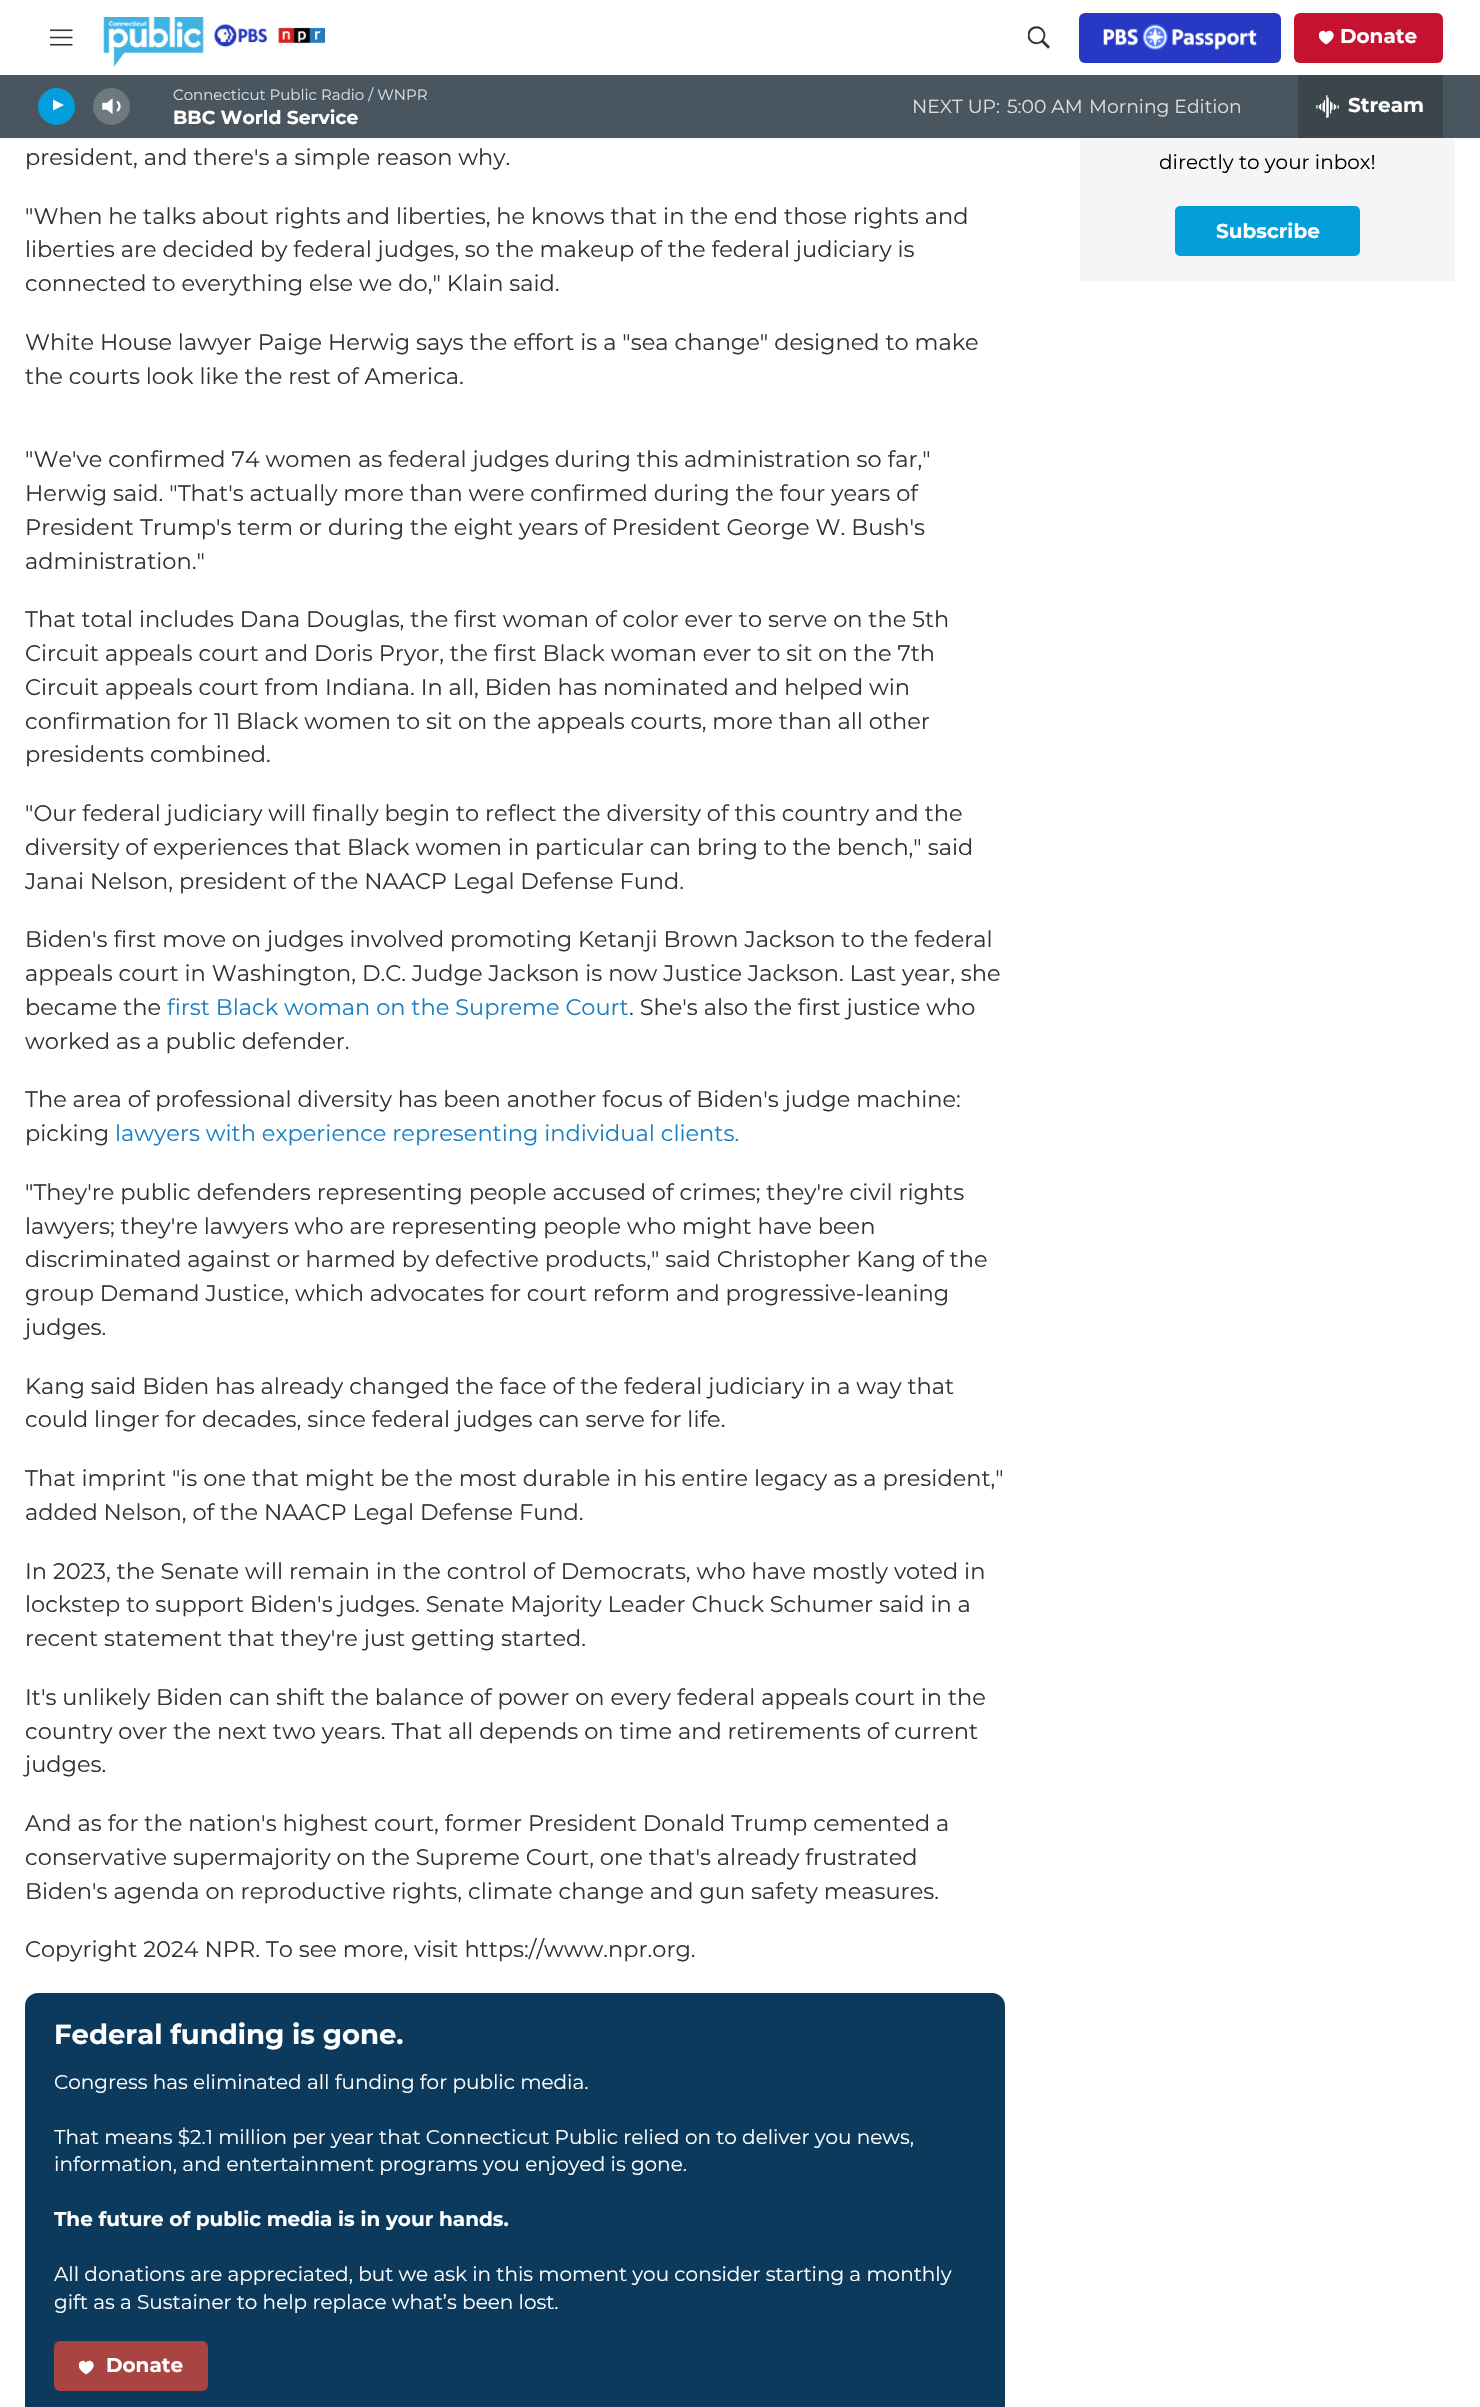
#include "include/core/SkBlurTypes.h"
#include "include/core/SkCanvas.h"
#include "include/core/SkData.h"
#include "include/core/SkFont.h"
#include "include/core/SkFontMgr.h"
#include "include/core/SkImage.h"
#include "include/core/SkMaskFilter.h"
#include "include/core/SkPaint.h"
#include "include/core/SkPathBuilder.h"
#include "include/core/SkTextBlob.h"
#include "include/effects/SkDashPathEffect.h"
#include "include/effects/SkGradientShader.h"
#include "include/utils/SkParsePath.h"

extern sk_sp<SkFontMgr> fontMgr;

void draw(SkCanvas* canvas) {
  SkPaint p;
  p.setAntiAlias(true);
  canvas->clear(SK_ColorWHITE);
  p.setColor(SkColorSetRGB(245, 245, 245));
  canvas->drawRect(SkRect::MakeLTRB(0, 138, 1480, 139), p);
  canvas->drawImageRect(SkImages::DeferredFromEncodedData(SkData::MakeFromFileName("images/1.png")), SkRect::MakeLTRB(50, 29, 73, 46), SkSamplingOptions());
  canvas->drawImageRect(SkImages::DeferredFromEncodedData(SkData::MakeFromFileName("images/2.png")), SkRect::MakeLTRB(103, 17, 325, 67), SkSamplingOptions());
  canvas->drawImageRect(SkImages::DeferredFromEncodedData(SkData::MakeFromFileName("images/3.png")), SkRect::MakeLTRB(1028, 26, 1050, 49), SkSamplingOptions());
  p.setColor(SkColorSetRGB(38, 56, 196));
  canvas->drawRoundRect(SkRect::MakeLTRB(1079, 13, 1281, 63), 6, 6, p);
  canvas->drawImageRect(SkImages::DeferredFromEncodedData(SkData::MakeFromFileName("images/4.png")), SkRect::MakeLTRB(1103, 24, 1257, 50), SkSamplingOptions());
  p.setColor(SkColorSetRGB(196, 18, 48));
  canvas->drawRoundRect(SkRect::MakeLTRB(1294, 13, 1443, 63), 6, 6, p);
  canvas->save();
  canvas->clipRect(SkRect::MakeLTRB(1319, 30, 1334, 45));
  p.setColor(SK_ColorWHITE);
  canvas->drawPath(SkPathBuilder().moveTo(1326, 33).cubicTo(1324, 26.5f, 1310.5f, 35, 1326, 44.5f).cubicTo(1342, 35, 1328.5f, 26.5f, 1326, 33).close().detach(), p);
  canvas->restore();
  p.setColor(SkColorSetRGB(74, 86, 95));
  canvas->drawRect(SkRect::MakeLTRB(0, 75, 1480, 138), p);
  p.setColor(SkColorSetRGB(4, 159, 218));
  canvas->drawCircle(56.5f, 106.5f, 18.5f, p);
  canvas->save();
  canvas->clipRect(SkRect::MakeLTRB(53, 98, 67, 116));
  p.setColor(SK_ColorWHITE);
  canvas->drawPath(SkPathBuilder().moveTo(52, 99).lineTo(64, 105).lineTo(52, 111).close().detach(), p);
  canvas->restore();
  canvas->drawImageRect(SkImages::DeferredFromEncodedData(SkData::MakeFromFileName("images/5.png")), SkRect::MakeLTRB(102, 98, 121, 115), SkSamplingOptions());
  p.setColor(SkColorSetARGB(51, 255, 255, 255));
  canvas->drawCircle(111.5f, 106.5f, 18.5f, p);
  p.setColor(SkColorSetRGB(59, 69, 76));
  canvas->drawRect(SkRect::MakeLTRB(1298, 75, 1443, 138), p);
  canvas->drawImageRect(SkImages::DeferredFromEncodedData(SkData::MakeFromFileName("images/6.png")), SkRect::MakeLTRB(1316, 95, 1339, 118), SkSamplingOptions());
  p.setColor(SkColorSetRGB(11, 58, 93));
  canvas->drawRoundRect(SkRect::MakeLTRB(27, 1995, 1003, 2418), 11, 11, p);
  p.setStyle(SkPaint::kStroke_Style);
  p.setStrokeWidth(4);
  canvas->drawRoundRect(SkRect::MakeLTRB(27, 1995, 1003, 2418), 11, 11, p);
  p.setStyle(SkPaint::kFill_Style);
  p.setColor(SkColorSetRGB(169, 68, 66));
  canvas->drawRoundRect(SkRect::MakeLTRB(54, 2341, 208, 2391), 6, 6, p);
  canvas->save();
  canvas->clipRect(SkRect::MakeLTRB(79, 2360, 94, 2375));
  p.setColor(SK_ColorWHITE);
  canvas->drawPath(SkPathBuilder().moveTo(86, 2363).cubicTo(84, 2356.5f, 70.5f, 2365, 86, 2374.5f).cubicTo(102, 2365, 88.5f, 2356.5f, 86, 2363).close().detach(), p);
  canvas->restore();
  p.setColor(SkColorSetRGB(245, 245, 247));
  canvas->drawRect(SkRect::MakeLTRB(1080, 139, 1455, 281), p);
  p.setColor(SkColorSetRGB(4, 159, 218));
  canvas->drawRoundRect(SkRect::MakeLTRB(1176.5f, 207.5f, 1358.5f, 254.5f), 3.5f, 3.5f, p);
  p.setStyle(SkPaint::kStroke_Style);
  p.setStrokeWidth(3);
  canvas->drawRoundRect(SkRect::MakeLTRB(1176.5f, 207.5f, 1358.5f, 254.5f), 3.5f, 3.5f, p);
  SkFont font1(fontMgr->matchFamilyStyle("Montserrat", SkFontStyle::Bold()), 20);
  font1.setSubpixel(true);
  p.setStyle(SkPaint::kFill_Style);
  p.setColor(SK_ColorWHITE);
  canvas->drawString("Donate", 1340, 43, font1, p);
  SkFont font2(fontMgr->matchFamilyStyle("Montserrat", SkFontStyle::Normal()), 15);
  font2.setSubpixel(true);
  p.setColor(SkColorSetRGB(219, 221, 223));
  canvas->drawString("Connecticut Public Radio / WNPR", 173, 100, font2, p);
  SkFont font3(fontMgr->matchFamilyStyle("Montserrat", SkFontStyle::Bold()), 18.75f);
  font3.setSubpixel(true);
  p.setColor(SK_ColorWHITE);
  canvas->drawString("BBC World Service", 173, 124, font3, p);
  SkFont font4(fontMgr->matchFamilyStyle("Montserrat", SkFontStyle::Normal()), 18.75f);
  font4.setSubpixel(true);
  p.setColor(SkColorSetRGB(219, 221, 223));
  canvas->drawString("NEXT UP:", 912, 113, font4, p);
  canvas->drawString("5:00 AM", 1007, 113, font4, p);
  canvas->drawString("Morning Edition", 1089, 113, font4, p);
  p.setColor(SK_ColorWHITE);
  canvas->drawString("Stream", 1348, 112, font1, p);
  SkFont font5(fontMgr->matchFamilyStyle("Montserrat", SkFontStyle::Normal()), 22.5f);
  font5.setSubpixel(true);
  p.setColor(SkColorSetRGB(51, 51, 51));
  canvas->drawString("president, and there's a simple reason why.", 25, 165, font5, p);
  canvas->drawString("\"When he talks about rights and liberties, he knows that in the end those rights and", 25, 224, font5, p);
  canvas->drawString("liberties are decided by federal judges, so the makeup of the federal judiciary is", 25, 257, font5, p);
  canvas->drawString("connected to everything else we do,\" Klain said.", 25, 291, font5, p);
  canvas->drawString("White House lawyer Paige Herwig says the effort is a \"sea change\" designed to make", 25, 350, font5, p);
  canvas->drawString("the courts look like the rest of America.", 25, 384, font5, p);
  canvas->drawString("\"We've confirmed 74 women as federal judges during this administration so far,\"", 25, 467, font5, p);
  canvas->drawString("Herwig said. \"That's actually more than were confirmed during the four years of", 25, 501, font5, p);
  canvas->drawString("President Trump's term or during the eight years of President George W. Bush's", 25, 535, font5, p);
  canvas->drawString("administration.\"", 25, 569, font5, p);
  canvas->drawString("That total includes Dana Douglas, the first woman of color ever to serve on the 5th", 25, 627, font5, p);
  canvas->drawString("Circuit appeals court and Doris Pryor, the first Black woman ever to sit on the 7th", 25, 661, font5, p);
  canvas->drawString("Circuit appeals court from Indiana. In all, Biden has nominated and helped win", 25, 695, font5, p);
  canvas->drawString("confirmation for 11 Black women to sit on the appeals courts, more than all other", 25, 729, font5, p);
  canvas->drawString("presidents combined.", 25, 762, font5, p);
  canvas->drawString("\"Our federal judiciary will finally begin to reflect the diversity of this country and the", 25, 821, font5, p);
  canvas->drawString("diversity of experiences that Black women in particular can bring to the bench,\" said", 25, 855, font5, p);
  canvas->drawString("Janai Nelson, president of the NAACP Legal Defense Fund.", 25, 889, font5, p);
  canvas->drawString("Biden's first move on judges involved promoting Ketanji Brown Jackson to the federal", 25, 947, font5, p);
  canvas->drawString("appeals court in Washington, D.C. Judge Jackson is now Justice Jackson. Last year, she", 25, 981, font5, p);
  canvas->drawString("became the", 25, 1015, font5, p);
  p.setColor(SkColorSetRGB(26, 127, 195));
  canvas->drawString("first Black woman on the Supreme Court", 167, 1015, font5, p);
  p.setColor(SkColorSetRGB(51, 51, 51));
  canvas->drawString(". She's also the first justice who", 629, 1015, font5, p);
  canvas->drawString("worked as a public defender.", 25, 1049, font5, p);
  canvas->drawString("The area of professional diversity has been another focus of Biden's judge machine:", 25, 1107, font5, p);
  canvas->drawString("picking", 25, 1141, font5, p);
  p.setColor(SkColorSetRGB(26, 127, 195));
  canvas->drawString("lawyers with experience representing individual clients.", 115, 1141, font5, p);
  p.setColor(SkColorSetRGB(51, 51, 51));
  canvas->drawString("\"They're public defenders representing people accused of crimes; they're civil rights", 25, 1200, font5, p);
  canvas->drawString("lawyers; they're lawyers who are representing people who might have been", 25, 1234, font5, p);
  canvas->drawString("discriminated against or harmed by defective products,\" said Christopher Kang of the", 25, 1267, font5, p);
  canvas->drawString("group Demand Justice, which advocates for court reform and progressive-leaning", 25, 1301, font5, p);
  canvas->drawString("judges.", 25, 1335, font5, p);
  canvas->drawString("Kang said Biden has already changed the face of the federal judiciary in a way that", 25, 1394, font5, p);
  canvas->drawString("could linger for decades, since federal judges can serve for life.", 25, 1427, font5, p);
  canvas->drawString("That imprint \"is one that might be the most durable in his entire legacy as a president,\"", 25, 1486, font5, p);
  canvas->drawString("added Nelson, of the NAACP Legal Defense Fund.", 25, 1520, font5, p);
  canvas->drawString("In 2023, the Senate will remain in the control of Democrats, who have mostly voted in", 25, 1579, font5, p);
  canvas->drawString("lockstep to support Biden's judges. Senate Majority Leader Chuck Schumer said in a", 25, 1612, font5, p);
  canvas->drawString("recent statement that they're just getting started.", 25, 1646, font5, p);
  canvas->drawString("It's unlikely Biden can shift the balance of power on every federal appeals court in the", 25, 1705, font5, p);
  canvas->drawString("country over the next two years. That all depends on time and retirements of current", 25, 1739, font5, p);
  canvas->drawString("judges.", 25, 1772, font5, p);
  canvas->drawString("And as for the nation's highest court, former President Donald Trump cemented a", 25, 1831, font5, p);
  canvas->drawString("conservative supermajority on the Supreme Court, one that's already frustrated", 25, 1865, font5, p);
  canvas->drawString("Biden's agenda on reproductive rights, climate change and gun safety measures.", 25, 1899, font5, p);
  canvas->drawString("Copyright 2024 NPR. To see more, visit https://www.npr.org.", 25, 1957, font5, p);
  SkFont font6(fontMgr->matchFamilyStyle("Montserrat", SkFontStyle::Bold()), 27.5f);
  font6.setSubpixel(true);
  p.setColor(SK_ColorWHITE);
  canvas->drawString("Federal funding is gone.", 54, 2044, font6, p);
  SkFont font7(fontMgr->matchFamilyStyle("Montserrat", SkFontStyle::Normal()), 20);
  font7.setSubpixel(true);
  canvas->drawString("Congress has eliminated all funding for public media.", 54, 2089, font7, p);
  canvas->drawString("That means $2.1 million per year that Connecticut Public relied on to deliver you news,", 54, 2144, font7, p);
  canvas->drawString("information, and entertainment programs you enjoyed is gone.", 54, 2171, font7, p);
  canvas->drawString("The future of public media is in your hands.", 54, 2226, font1, p);
  canvas->drawString("All donations are appreciated, but we ask in this moment you consider starting a monthly", 54, 2281, font7, p);
  canvas->drawString("gift as a Sustainer to help replace what’s been lost.", 54, 2309, font7, p);
  canvas->drawString("Donate", 106, 2372, font1, p);
  p.setColor(SK_ColorBLACK);
  canvas->drawString("directly to your inbox!", 1159, 169, font7, p);
  p.setColor(SK_ColorWHITE);
  canvas->drawString("Subscribe", 1216, 238, font1, p);
}
